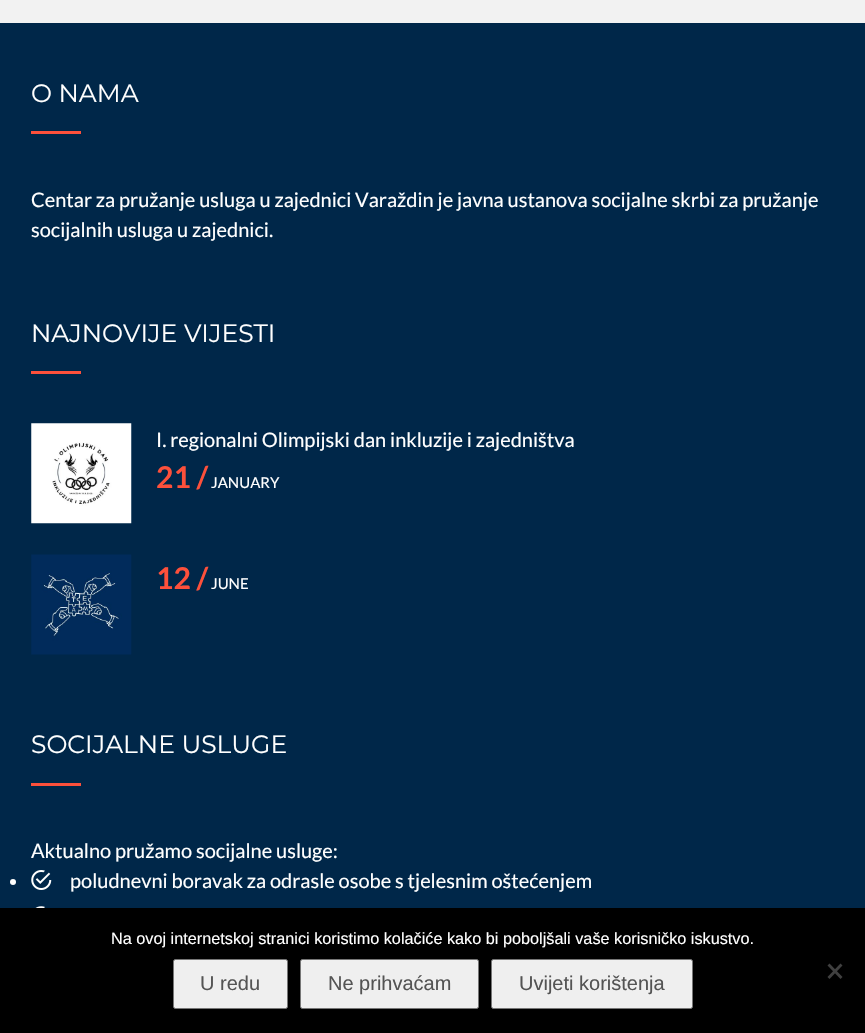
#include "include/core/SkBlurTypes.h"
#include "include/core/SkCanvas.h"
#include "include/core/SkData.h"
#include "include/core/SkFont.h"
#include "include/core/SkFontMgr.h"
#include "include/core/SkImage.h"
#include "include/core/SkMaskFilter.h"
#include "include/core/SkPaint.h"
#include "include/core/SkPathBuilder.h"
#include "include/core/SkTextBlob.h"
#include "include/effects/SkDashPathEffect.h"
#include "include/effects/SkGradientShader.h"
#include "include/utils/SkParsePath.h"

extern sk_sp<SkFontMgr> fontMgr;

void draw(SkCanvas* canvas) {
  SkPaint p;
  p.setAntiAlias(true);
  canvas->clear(SkColorSetRGB(242, 242, 242));
  p.setColor(SkColorSetRGB(0, 39, 73));
  canvas->drawRect(SkRect::MakeLTRB(0, 23, 865, 908), p);
  p.setColor(SkColorSetRGB(253, 80, 59));
  canvas->drawRect(SkRect::MakeLTRB(31, 131, 81, 134), p);
  canvas->drawRect(SkRect::MakeLTRB(31, 371, 81, 374), p);
  canvas->drawImageRect(SkImages::DeferredFromEncodedData(SkData::MakeFromFileName("images/1.png")), SkRect::MakeLTRB(31, 423, 132, 524), SkSamplingOptions());
  canvas->drawImageRect(SkImages::DeferredFromEncodedData(SkData::MakeFromFileName("images/2.png")), SkRect::MakeLTRB(31, 554, 132, 655), SkSamplingOptions());
  canvas->drawRect(SkRect::MakeLTRB(31, 783, 81, 786), p);
  p.setColor(SK_ColorWHITE);
  canvas->drawCircle(13, 882, 3, p);
  canvas->drawImageRect(SkImages::DeferredFromEncodedData(SkData::MakeFromFileName("images/3.png")), SkRect::MakeLTRB(31, 870, 52, 890), SkSamplingOptions());
  canvas->drawImageRect(SkImages::DeferredFromEncodedData(SkData::MakeFromFileName("images/4.png")), SkRect::MakeLTRB(35, 906, 45, 908), SkSamplingOptions());
  p.setColor(SK_ColorBLACK);
  canvas->drawRect(SkRect::MakeLTRB(0, 908, 865, 1033), p);
  p.setColor(SkColorSetRGB(64, 64, 64));
  canvas->drawPath(SkPathBuilder().moveTo(840.5f, 963.5f).lineTo(842.5f, 965.5f).lineTo(829.5f, 979).lineTo(827.5f, 977).close().detach(), p);
  canvas->drawPath(SkPathBuilder().moveTo(827.5f, 965.5f).lineTo(829.5f, 963.5f).lineTo(842.5f, 977).lineTo(840.5f, 979).close().detach(), p);
  p.setColor(SkColorSetRGB(239, 239, 239));
  canvas->drawRoundRect(SkRect::MakeLTRB(173.5f, 959.5f, 287.5f, 1008.5f), 2, 2, p);
  p.setStyle(SkPaint::kStroke_Style);
  p.setStrokeWidth(1);
  p.setColor(SkColorSetRGB(118, 118, 118));
  canvas->drawRoundRect(SkRect::MakeLTRB(173.5f, 959.5f, 287.5f, 1008.5f), 2, 2, p);
  p.setStyle(SkPaint::kFill_Style);
  p.setColor(SkColorSetRGB(239, 239, 239));
  canvas->drawRoundRect(SkRect::MakeLTRB(300.5f, 959.5f, 478.5f, 1008.5f), 2, 2, p);
  p.setStyle(SkPaint::kStroke_Style);
  p.setColor(SkColorSetRGB(118, 118, 118));
  canvas->drawRoundRect(SkRect::MakeLTRB(300.5f, 959.5f, 478.5f, 1008.5f), 2, 2, p);
  p.setStyle(SkPaint::kFill_Style);
  p.setColor(SkColorSetRGB(239, 239, 239));
  canvas->drawRoundRect(SkRect::MakeLTRB(491.5f, 959.5f, 692.5f, 1008.5f), 2, 2, p);
  p.setStyle(SkPaint::kStroke_Style);
  p.setColor(SkColorSetRGB(118, 118, 118));
  canvas->drawRoundRect(SkRect::MakeLTRB(491.5f, 959.5f, 692.5f, 1008.5f), 2, 2, p);
  SkFont font1(fontMgr->matchFamilyStyle("Montserrat", SkFontStyle::Normal()), 25);
  font1.setSubpixel(true);
  p.setStyle(SkPaint::kFill_Style);
  p.setColor(SK_ColorWHITE);
  canvas->drawString("O NAMA", 31, 102, font1, p);
  SkFont font2(fontMgr->matchFamilyStyle("Lato", SkFontStyle::Normal()), 20);
  font2.setSubpixel(true);
  canvas->drawString("Centar za pružanje usluga u zajednici Varaždin je javna ustanova socijalne skrbi za pružanje", 31, 207, font2, p);
  canvas->drawString("socijalnih usluga u zajednici.", 31, 237, font2, p);
  canvas->drawString("NAJNOVIJE VIJESTI", 31, 342, font1, p);
  canvas->drawString("I. regionalni Olimpijski dan inkluzije i zajedništva", 156, 447, font2, p);
  SkFont font3(fontMgr->matchFamilyStyle("Lato", SkFontStyle::Bold()), 30);
  font3.setSubpixel(true);
  p.setColor(SkColorSetRGB(253, 80, 59));
  canvas->drawString("21 /", 156, 488, font3, p);
  SkFont font4(fontMgr->matchFamilyStyle("Lato", SkFontStyle::Normal()), 15);
  font4.setSubpixel(true);
  p.setColor(SK_ColorWHITE);
  canvas->drawString("JANUARY", 211, 488, font4, p);
  p.setColor(SkColorSetRGB(253, 80, 59));
  canvas->drawString("12 /", 156, 589, font3, p);
  p.setColor(SK_ColorWHITE);
  canvas->drawString("JUNE", 211, 589, font4, p);
  canvas->drawString("SOCIJALNE USLUGE", 31, 753, font1, p);
  canvas->drawString("Aktualno pružamo socijalne usluge:", 31, 858, font2, p);
  canvas->drawString("poludnevni boravak za odrasle osobe s tjelesnim oštećenjem", 70, 888, font2, p);
  SkFont font5(fontMgr->matchFamilyStyle("Liberation Sans", SkFontStyle::Normal()), 16.25f);
  font5.setSubpixel(true);
  canvas->drawString("Na ovoj internetskoj stranici koristimo kolačiće kako bi poboljšali vaše korisničko iskustvo.", 111, 944, font5, p);
  SkFont font6(fontMgr->matchFamilyStyle("Liberation Sans", SkFontStyle::Normal()), 20);
  font6.setSubpixel(true);
  p.setColor(SkColorSetRGB(84, 84, 84));
  canvas->drawString("U redu", 200, 990, font6, p);
  canvas->drawString("Ne prihvaćam", 328, 990, font6, p);
  canvas->drawString("Uvijeti korištenja", 519, 990, font6, p);
}
